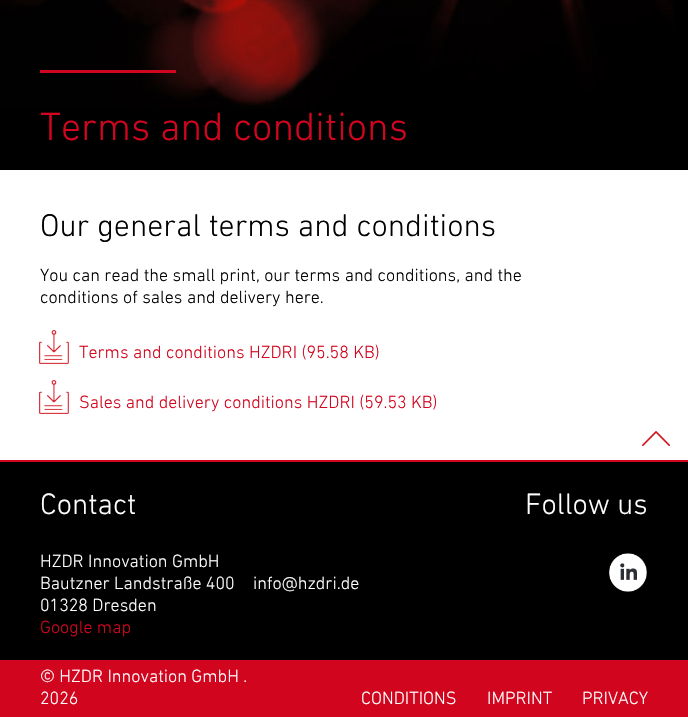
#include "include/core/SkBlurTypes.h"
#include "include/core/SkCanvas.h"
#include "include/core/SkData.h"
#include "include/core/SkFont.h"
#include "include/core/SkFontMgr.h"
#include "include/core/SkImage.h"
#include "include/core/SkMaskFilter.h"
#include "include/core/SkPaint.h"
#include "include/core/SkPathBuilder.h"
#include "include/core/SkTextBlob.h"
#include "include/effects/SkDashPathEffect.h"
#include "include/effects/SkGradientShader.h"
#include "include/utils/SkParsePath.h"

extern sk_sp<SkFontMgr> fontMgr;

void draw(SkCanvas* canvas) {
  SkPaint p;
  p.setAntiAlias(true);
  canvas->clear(SK_ColorWHITE);
  p.setColor(SK_ColorBLACK);
  canvas->drawRect(SkRect::MakeLTRB(0, 0, 688, 170), p);
  canvas->drawImageRect(SkImages::DeferredFromEncodedData(SkData::MakeFromFileName("images/1.png")), SkRect::MakeLTRB(0, 0, 674, 109), SkSamplingOptions());
  p.setColor(SkColorSetRGB(210, 5, 30));
  canvas->drawRect(SkRect::MakeLTRB(40, 70, 176, 73), p);
  canvas->drawImageRect(SkImages::DeferredFromEncodedData(SkData::MakeFromFileName("images/2.png")), SkRect::MakeLTRB(39, 330, 69, 364), SkSamplingOptions());
  canvas->drawImageRect(SkImages::DeferredFromEncodedData(SkData::MakeFromFileName("images/2.png")), SkRect::MakeLTRB(39, 380, 69, 414), SkSamplingOptions());
  p.setColor(SK_ColorBLACK);
  canvas->drawRect(SkRect::MakeLTRB(0, 462, 688, 660), p);
  p.setColor(SkColorSetRGB(210, 5, 30));
  canvas->drawRect(SkRect::MakeLTRB(0, 460, 688, 462), p);
  canvas->drawImageRect(SkImages::DeferredFromEncodedData(SkData::MakeFromFileName("images/3.png")), SkRect::MakeLTRB(642, 431, 670, 446), SkSamplingOptions());
  canvas->drawImageRect(SkImages::DeferredFromEncodedData(SkData::MakeFromFileName("images/4.png")), SkRect::MakeLTRB(609, 553, 647, 592), SkSamplingOptions());
  canvas->drawRect(SkRect::MakeLTRB(0, 660, 688, 717), p);
  SkFont font1(fontMgr->matchFamilyStyle("DIN Next", SkFontStyle(300, SkFontStyle::kNormal_Width, SkFontStyle::kUpright_Slant)), 40);
  font1.setSubpixel(true);
  canvas->drawString("Terms and conditions", 40, 140, font1, p);
  SkFont font2(fontMgr->matchFamilyStyle("DIN Next", SkFontStyle(300, SkFontStyle::kNormal_Width, SkFontStyle::kUpright_Slant)), 32);
  font2.setSubpixel(true);
  p.setColor(SK_ColorBLACK);
  canvas->drawString("Our general terms and conditions", 40, 236, font2, p);
  SkFont font3(fontMgr->matchFamilyStyle("DIN Next", SkFontStyle(300, SkFontStyle::kNormal_Width, SkFontStyle::kUpright_Slant)), 18);
  font3.setSubpixel(true);
  canvas->drawString("You can read the small print, our terms and conditions, and the", 40, 281, font3, p);
  canvas->drawString("conditions of sales and delivery here.", 40, 303, font3, p);
  p.setColor(SkColorSetRGB(210, 5, 30));
  canvas->drawString("Terms and conditions HZDRI (95.58 KB)", 79, 358, font3, p);
  canvas->drawString("Sales and delivery conditions HZDRI (59.53 KB)", 79, 408, font3, p);
  SkFont font4(fontMgr->matchFamilyStyle("DIN Next", SkFontStyle(300, SkFontStyle::kNormal_Width, SkFontStyle::kUpright_Slant)), 30);
  font4.setSubpixel(true);
  p.setColor(SK_ColorWHITE);
  canvas->drawString("Contact", 40, 514, font4, p);
  canvas->drawString("HZDR Innovation GmbH", 40, 567, font3, p);
  canvas->drawString("Bautzner Landstraße 400", 40, 589, font3, p);
  canvas->drawString("01328 Dresden", 40, 611, font3, p);
  p.setColor(SkColorSetRGB(210, 5, 30));
  canvas->drawString("Google map", 40, 633, font3, p);
  p.setColor(SK_ColorWHITE);
  canvas->drawString("info@hzdri.de", 253, 589, font3, p);
  canvas->drawString("Follow us", 525, 514, font4, p);
  canvas->drawString("© HZDR Innovation GmbH .", 40, 682, font3, p);
  canvas->drawString("2026", 40, 704, font3, p);
  canvas->drawString("CONDITIONS", 361, 704, font3, p);
  canvas->drawString("IMPRINT", 487, 704, font3, p);
  canvas->drawString("PRIVACY", 582, 704, font3, p);
}
